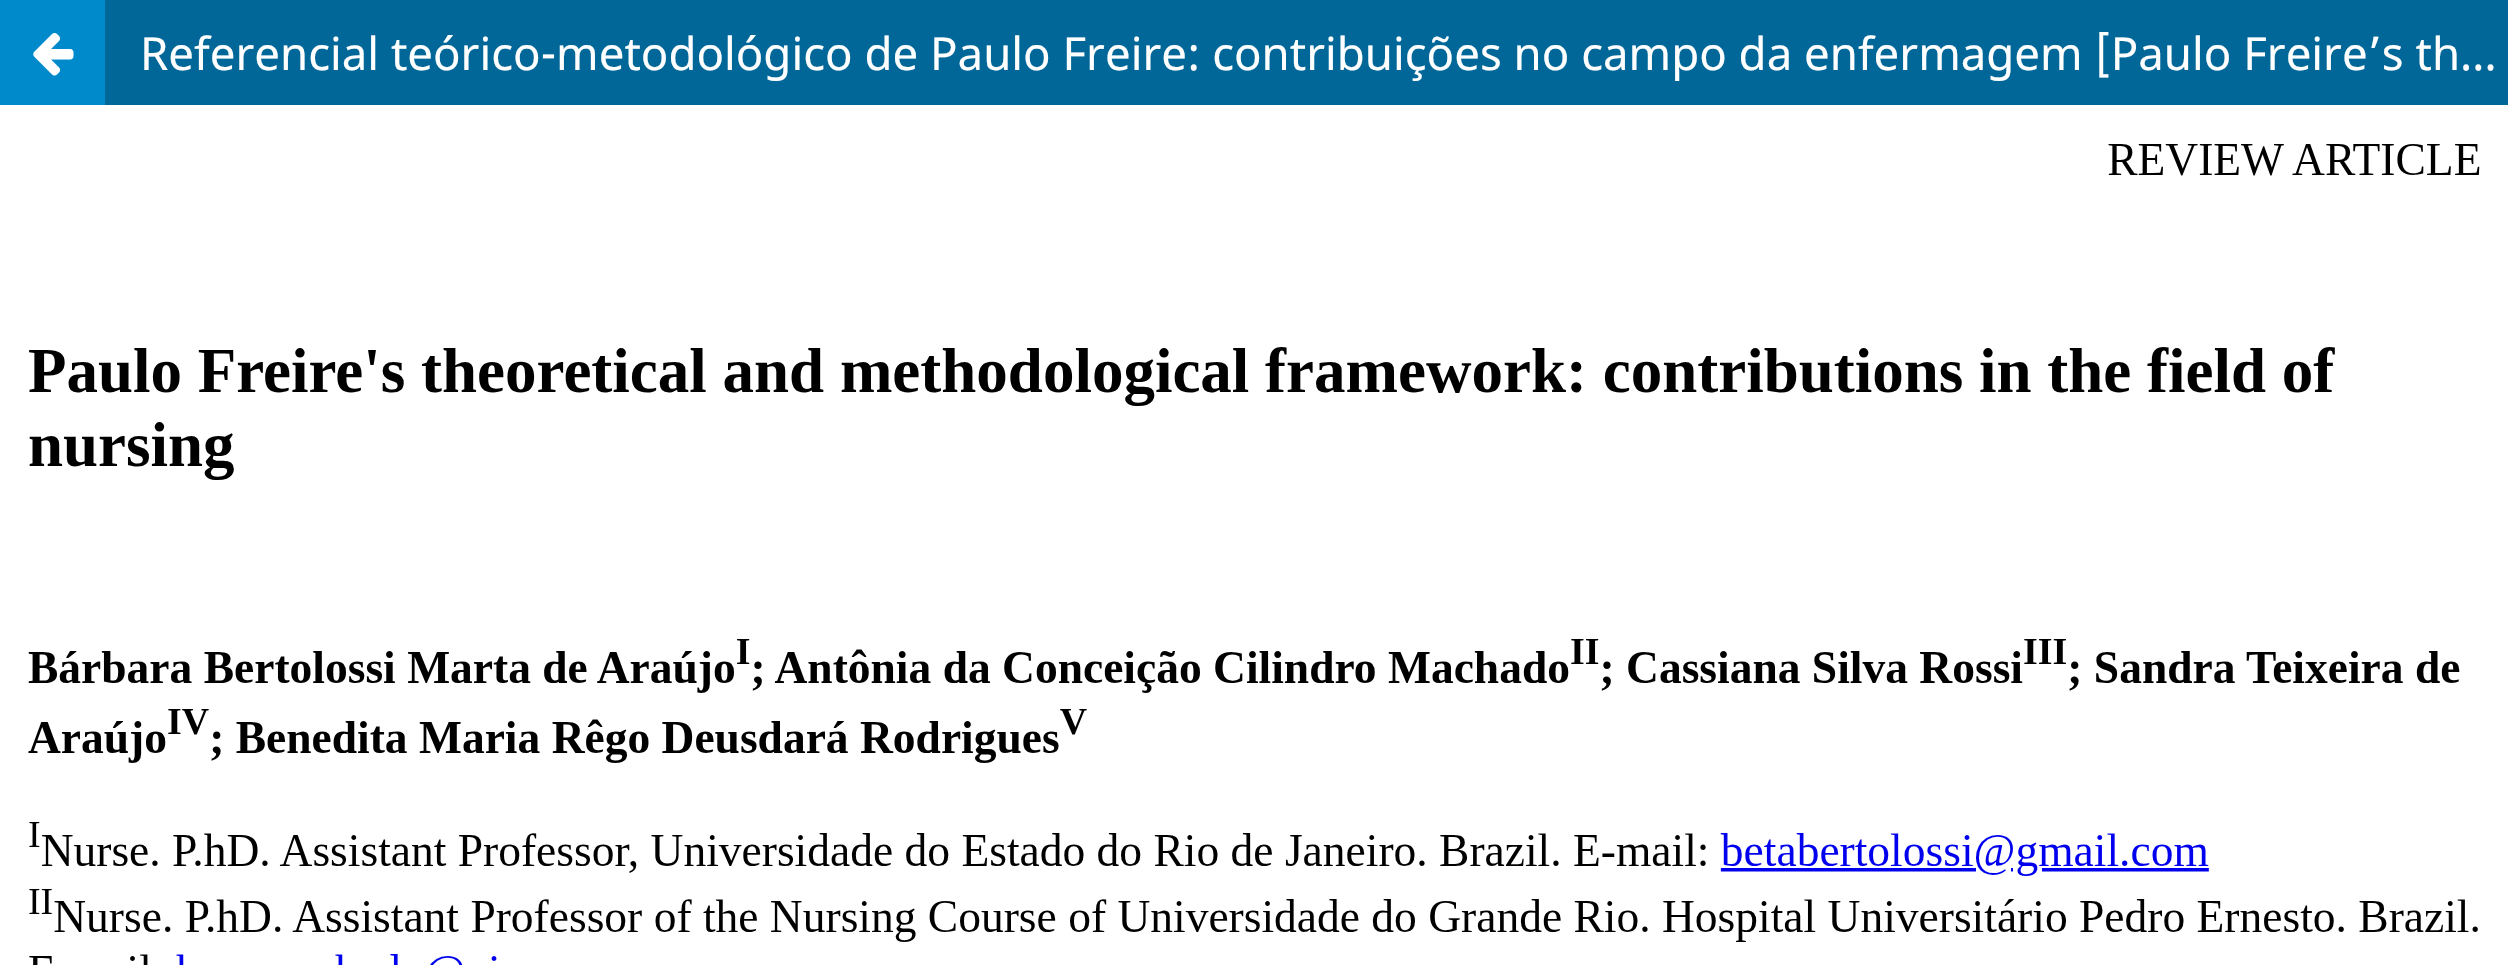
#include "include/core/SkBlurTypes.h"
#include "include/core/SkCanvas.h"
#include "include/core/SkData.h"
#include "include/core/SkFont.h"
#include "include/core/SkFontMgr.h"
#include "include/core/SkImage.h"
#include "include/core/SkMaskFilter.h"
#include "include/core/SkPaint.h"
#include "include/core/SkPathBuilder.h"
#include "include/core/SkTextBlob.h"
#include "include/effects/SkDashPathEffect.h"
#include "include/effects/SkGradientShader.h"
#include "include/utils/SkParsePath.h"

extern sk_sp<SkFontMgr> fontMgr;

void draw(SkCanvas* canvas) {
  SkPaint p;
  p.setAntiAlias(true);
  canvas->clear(SK_ColorWHITE);
  p.setColor(SkColorSetRGB(0, 103, 152));
  canvas->drawRect(SkRect::MakeLTRB(105, 0, 2508, 105), p);
  p.setColor(SkColorSetRGB(0, 138, 203));
  canvas->drawRect(SkRect::MakeLTRB(0, 0, 105, 105), p);
  canvas->drawImageRect(SkImages::DeferredFromEncodedData(SkData::MakeFromFileName("images/1.png")), SkRect::MakeLTRB(33, 33, 74, 76), SkSamplingOptions());
  canvas->drawImageRect(SkImages::DeferredFromEncodedData(SkData::MakeFromFileName("images/2.png")), SkRect::MakeLTRB(28, 144, 2480, 965), SkSamplingOptions());
  SkFont font1(fontMgr->matchFamilyStyle("Noto Sans", SkFontStyle::Normal()), 45.57f);
  font1.setSubpixel(true);
  p.setColor(SK_ColorWHITE);
  canvas->drawString("Referencial teórico-metodológico de Paulo Freire: contribuições no campo da enfermagem [Paulo Freire’s th…", 140, 70, font1, p);
}
